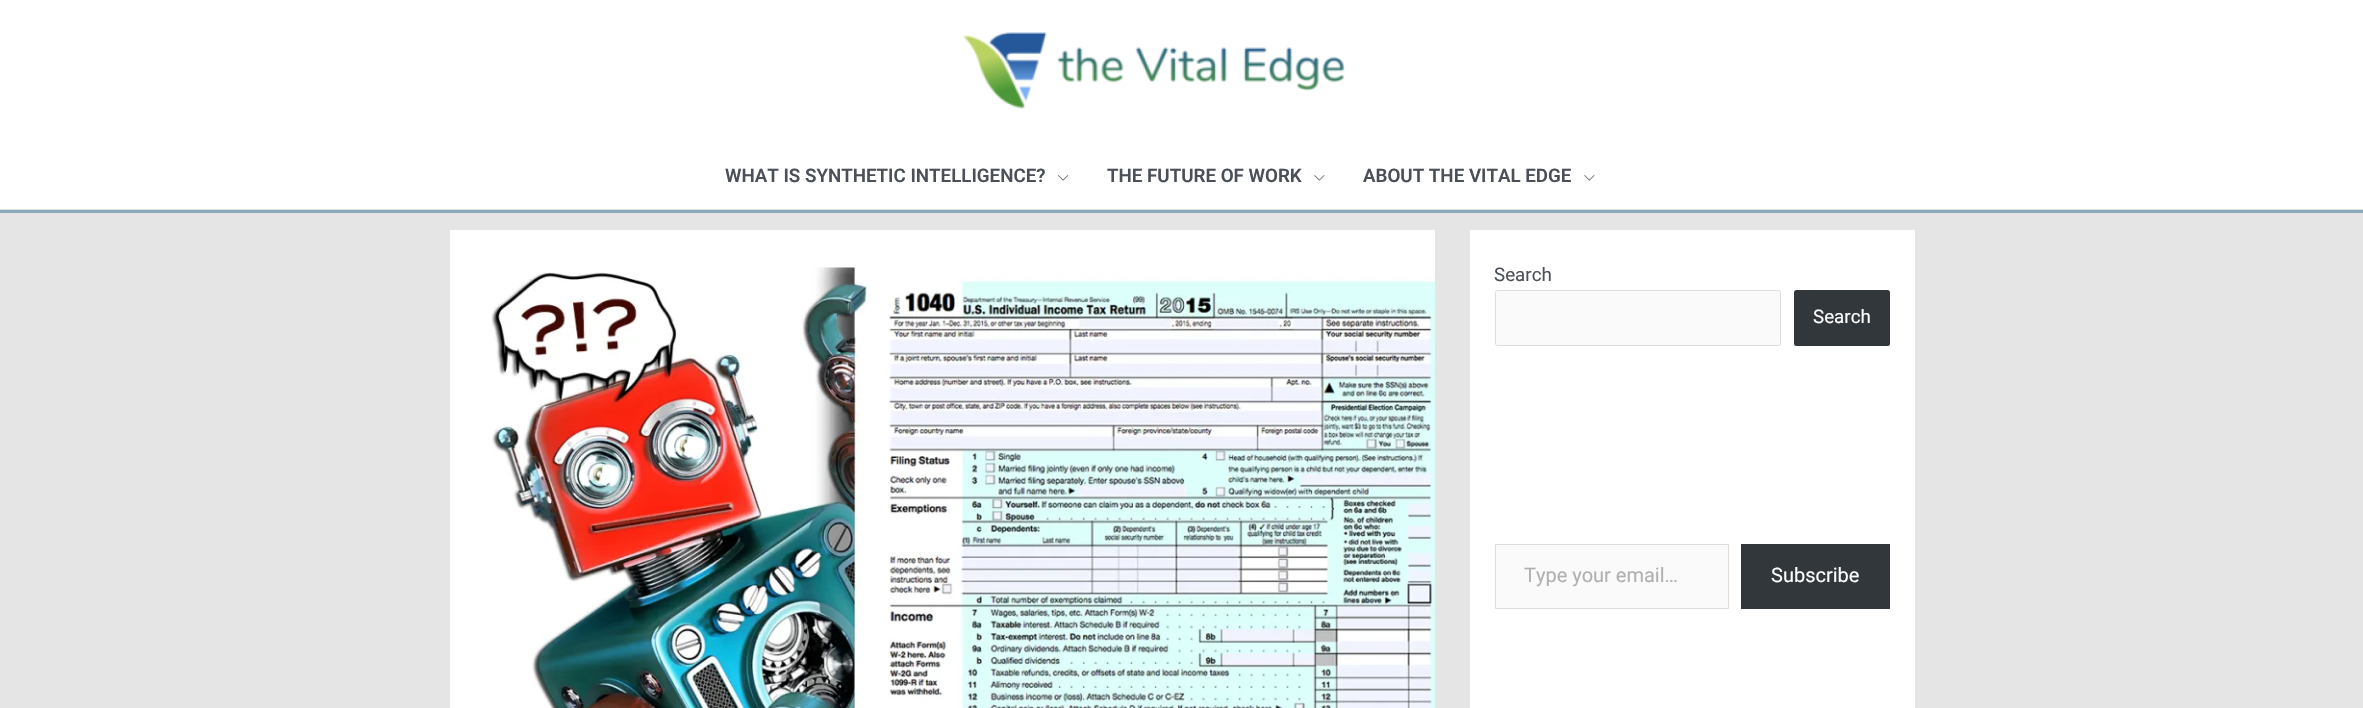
#include "include/core/SkBlurTypes.h"
#include "include/core/SkCanvas.h"
#include "include/core/SkData.h"
#include "include/core/SkFont.h"
#include "include/core/SkFontMgr.h"
#include "include/core/SkImage.h"
#include "include/core/SkMaskFilter.h"
#include "include/core/SkPaint.h"
#include "include/core/SkPathBuilder.h"
#include "include/core/SkTextBlob.h"
#include "include/effects/SkDashPathEffect.h"
#include "include/effects/SkGradientShader.h"
#include "include/utils/SkParsePath.h"

extern sk_sp<SkFontMgr> fontMgr;

void draw(SkCanvas* canvas) {
  SkPaint p;
  p.setAntiAlias(true);
  canvas->clear(SkColorSetRGB(229, 229, 229));
  p.setColor(SK_ColorWHITE);
  canvas->drawRect(SkRect::MakeLTRB(0, 0, 2363, 209), p);
  p.setColor(SkColorSetRGB(221, 221, 221));
  canvas->drawRect(SkRect::MakeLTRB(0, 209, 2363, 210), p);
  canvas->drawImageRect(SkImages::DeferredFromEncodedData(SkData::MakeFromFileName("images/1.png")), SkRect::MakeLTRB(963, 32, 1345, 109), SkSamplingOptions());
  canvas->drawImageRect(SkImages::DeferredFromEncodedData(SkData::MakeFromFileName("images/2.png")), SkRect::MakeLTRB(1058, 175, 1069, 181), SkSamplingOptions());
  canvas->drawImageRect(SkImages::DeferredFromEncodedData(SkData::MakeFromFileName("images/3.png")), SkRect::MakeLTRB(1314, 175, 1325, 181), SkSamplingOptions());
  canvas->drawImageRect(SkImages::DeferredFromEncodedData(SkData::MakeFromFileName("images/3.png")), SkRect::MakeLTRB(1584, 175, 1595, 181), SkSamplingOptions());
  p.setColor(SkColorSetRGB(139, 169, 184));
  canvas->drawRect(SkRect::MakeLTRB(0, 210, 2363, 213), p);
  p.setColor(SK_ColorWHITE);
  canvas->drawRect(SkRect::MakeLTRB(450, 230, 1435, 708), p);
  canvas->drawImageRect(SkImages::DeferredFromEncodedData(SkData::MakeFromFileName("images/4.png")), SkRect::MakeLTRB(491, 267, 1435, 708), SkSamplingOptions());
  canvas->drawRect(SkRect::MakeLTRB(1470, 230, 1915, 708), p);
  p.setColor(SkColorSetRGB(250, 250, 250));
  canvas->drawRoundRect(SkRect::MakeLTRB(1495.5f, 290.5f, 1780.5f, 345.5f), 2, 2, p);
  p.setStyle(SkPaint::kStroke_Style);
  p.setStrokeWidth(1);
  p.setColor(SkColorSetRGB(221, 221, 221));
  canvas->drawRoundRect(SkRect::MakeLTRB(1495.5f, 290.5f, 1780.5f, 345.5f), 2, 2, p);
  p.setStyle(SkPaint::kFill_Style);
  p.setColor(SkColorSetRGB(50, 55, 60));
  canvas->drawRoundRect(SkRect::MakeLTRB(1794, 290, 1890, 346), 2.5f, 2.5f, p);
  p.setColor(SkColorSetRGB(250, 250, 250));
  canvas->drawRect(SkRect::MakeLTRB(1495.5f, 544.5f, 1728.5f, 608.5f), p);
  p.setStyle(SkPaint::kStroke_Style);
  p.setColor(SkColorSetRGB(221, 221, 221));
  canvas->drawRect(SkRect::MakeLTRB(1495.5f, 544.5f, 1728.5f, 608.5f), p);
  p.setStyle(SkPaint::kFill_Style);
  p.setColor(SkColorSetRGB(50, 55, 60));
  canvas->drawRect(SkRect::MakeLTRB(1741, 544, 1890, 609), p);
  SkFont font1(fontMgr->matchFamilyStyle("Roboto", SkFontStyle(600, SkFontStyle::kNormal_Width, SkFontStyle::kUpright_Slant)), 18.75f);
  font1.setSubpixel(true);
  p.setColor(SkColorSetRGB(75, 79, 88));
  canvas->drawString("WHAT IS SYNTHETIC INTELLIGENCE?", 725, 182, font1, p);
  canvas->drawString("THE FUTURE OF WORK", 1107, 182, font1, p);
  canvas->drawString("ABOUT THE VITAL EDGE", 1363, 182, font1, p);
  SkFont font2(fontMgr->matchFamilyStyle("Roboto", SkFontStyle::Normal()), 18.75f);
  font2.setSubpixel(true);
  canvas->drawString("Search", 1494, 281, font2, p);
  p.setColor(SK_ColorWHITE);
  canvas->drawString("Search", 1813, 323, font2, p);
  SkFont font3(fontMgr->matchFamilyStyle("Roboto", SkFontStyle::Normal()), 20);
  font3.setSubpixel(true);
  p.setColor(SkColorSetRGB(176, 176, 176));
  canvas->drawString("Type your email…", 1524, 582, font3, p);
  p.setColor(SK_ColorWHITE);
  canvas->drawString("Subscribe", 1771, 582, font3, p);
}
